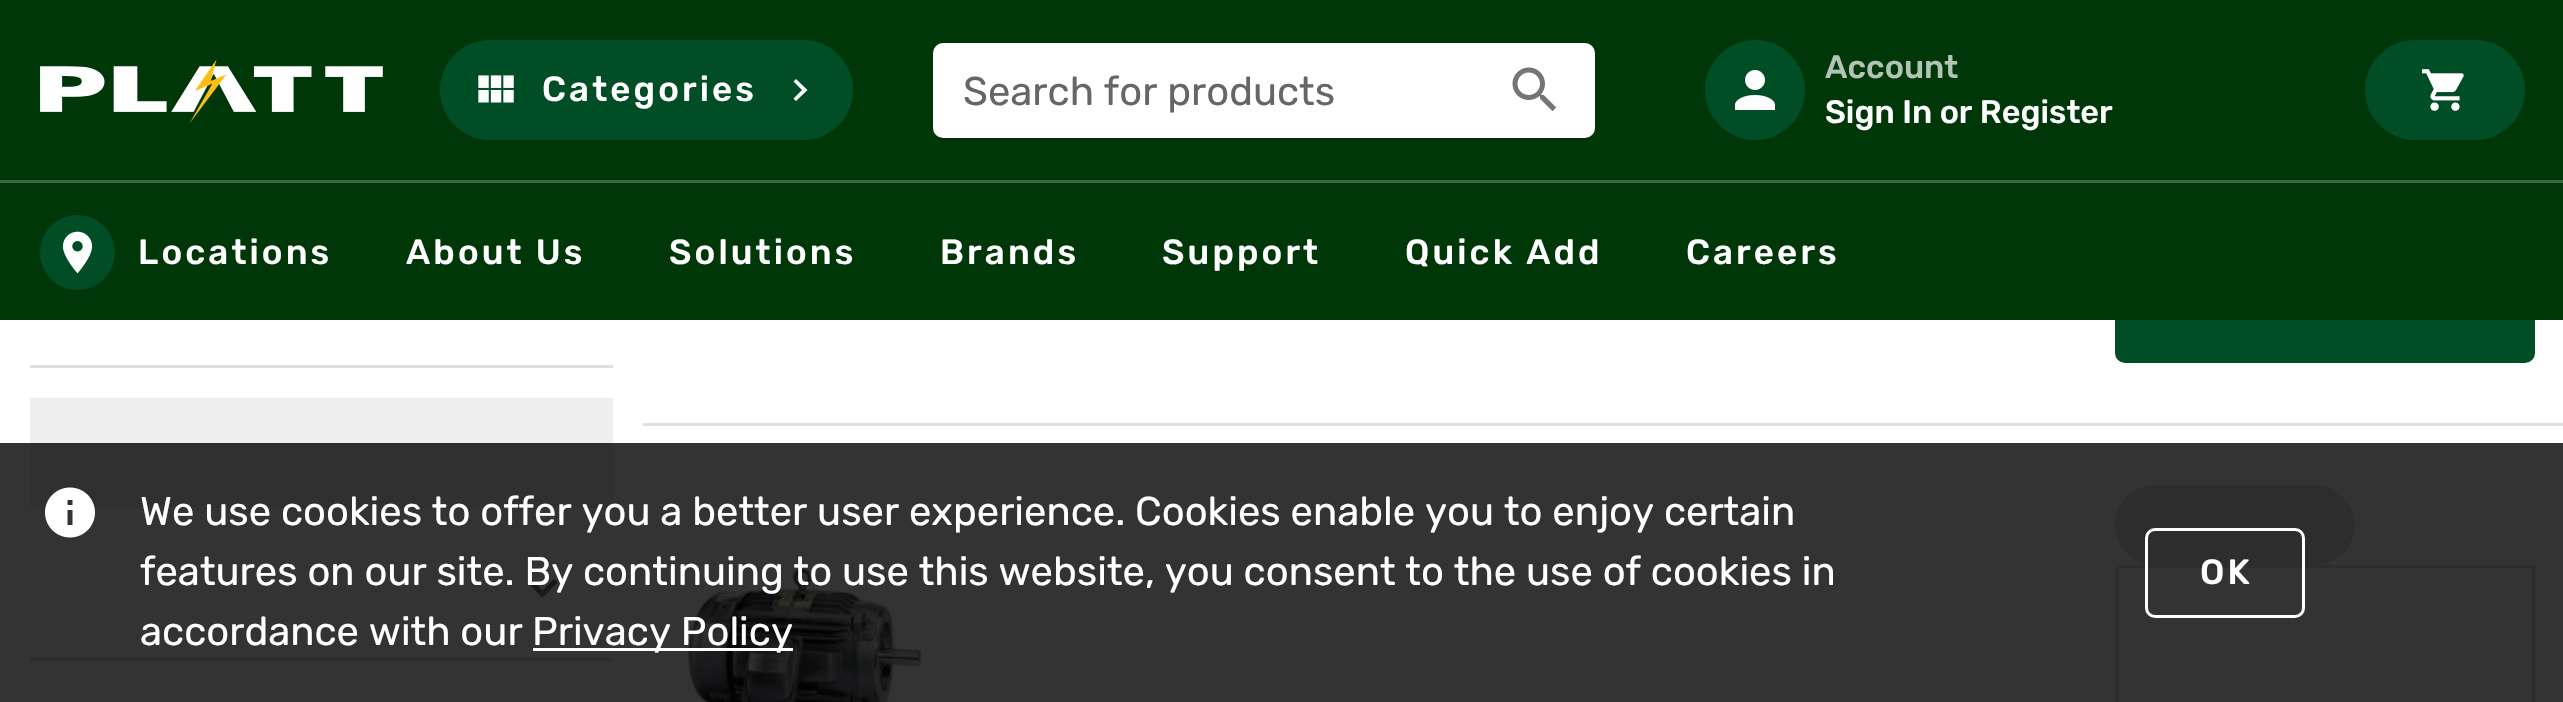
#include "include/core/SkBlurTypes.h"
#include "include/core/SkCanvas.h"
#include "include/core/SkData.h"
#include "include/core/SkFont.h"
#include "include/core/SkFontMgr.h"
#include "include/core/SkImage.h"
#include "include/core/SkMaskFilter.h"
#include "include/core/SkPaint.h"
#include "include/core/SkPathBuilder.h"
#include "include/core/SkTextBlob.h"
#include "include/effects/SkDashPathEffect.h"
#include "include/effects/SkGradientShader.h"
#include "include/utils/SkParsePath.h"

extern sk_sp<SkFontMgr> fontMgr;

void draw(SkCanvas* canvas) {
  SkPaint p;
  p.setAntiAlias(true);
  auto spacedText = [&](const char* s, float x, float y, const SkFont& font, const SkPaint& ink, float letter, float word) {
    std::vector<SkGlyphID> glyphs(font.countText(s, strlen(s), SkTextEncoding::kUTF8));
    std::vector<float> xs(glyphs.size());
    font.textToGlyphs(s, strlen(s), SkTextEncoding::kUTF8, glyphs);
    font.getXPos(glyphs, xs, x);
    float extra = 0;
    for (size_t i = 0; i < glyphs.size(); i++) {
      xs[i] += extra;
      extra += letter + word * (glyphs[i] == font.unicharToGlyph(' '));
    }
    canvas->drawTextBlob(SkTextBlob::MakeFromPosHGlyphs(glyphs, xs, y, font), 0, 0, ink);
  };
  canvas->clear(SK_ColorWHITE);
  p.setColor(SkColorSetRGB(0, 77, 38));
  canvas->drawRoundRect(SkRect::MakeLTRB(2115, 243, 2535, 363), 10, 10, p);
  p.setColor(SkColorSetRGB(0, 55, 8));
  canvas->drawRect(SkRect::MakeLTRB(0, 0, 2563, 320), p);
  canvas->drawImageRect(SkImages::DeferredFromEncodedData(SkData::MakeFromFileName("images/1.png")), SkRect::MakeLTRB(40, 59, 383, 123), SkSamplingOptions());
  p.setColor(SkColorSetRGB(0, 77, 38));
  canvas->drawRoundRect(SkRect::MakeLTRB(440, 40, 853, 140), 50, 50, p);
  canvas->drawImageRect(SkImages::DeferredFromEncodedData(SkData::MakeFromFileName("images/2.png")), SkRect::MakeLTRB(478, 75, 514, 103), SkSamplingOptions());
  p.setColor(SK_ColorWHITE);
  canvas->drawPath(SkPathBuilder().moveTo(793.5f, 98.5f).lineTo(802, 90).lineTo(793.5f, 81.5f).lineTo(796, 79).lineTo(807.5f, 90).lineTo(796, 101).close().detach(), p);
  p.setColor(SkColorSetARGB(51, 0, 0, 0));
  p.setMaskFilter(SkMaskFilter::MakeBlur(kNormal_SkBlurStyle, 1));
  canvas->drawRoundRect(SkRect::MakeLTRB(938, 55, 1590, 140), 5, 5, p);
  p.setMaskFilter(nullptr);
  p.setColor(SK_ColorWHITE);
  canvas->drawRoundRect(SkRect::MakeLTRB(933, 43, 1595, 138), 10, 10, p);
  canvas->drawImageRect(SkImages::DeferredFromEncodedData(SkData::MakeFromFileName("images/3.png")), SkRect::MakeLTRB(1512, 67, 1557, 112), SkSamplingOptions());
  p.setColor(SkColorSetRGB(0, 77, 38));
  canvas->drawCircle(1755, 90, 50, p);
  canvas->drawImageRect(SkImages::DeferredFromEncodedData(SkData::MakeFromFileName("images/4.png")), SkRect::MakeLTRB(1735, 70, 1775, 110), SkSamplingOptions());
  canvas->drawRoundRect(SkRect::MakeLTRB(2365, 40, 2525, 140), 50, 50, p);
  canvas->drawImageRect(SkImages::DeferredFromEncodedData(SkData::MakeFromFileName("images/5.png")), SkRect::MakeLTRB(2422, 69, 2464, 111), SkSamplingOptions());
  p.setColor(SkColorSetRGB(61, 103, 67));
  canvas->drawRect(SkRect::MakeLTRB(0, 180, 2563, 183), p);
  p.setColor(SkColorSetRGB(0, 77, 38));
  canvas->drawCircle(77.5f, 252.5f, 37.5f, p);
  canvas->drawImageRect(SkImages::DeferredFromEncodedData(SkData::MakeFromFileName("images/6.png")), SkRect::MakeLTRB(62, 231, 93, 274), SkSamplingOptions());
  p.setColor(SkColorSetRGB(224, 224, 224));
  canvas->drawRect(SkRect::MakeLTRB(30, 365, 613, 368), p);
  p.setColor(SkColorSetRGB(238, 238, 238));
  canvas->drawRect(SkRect::MakeLTRB(30, 398, 613, 508), p);
  p.setColor(SkColorSetRGB(117, 117, 117));
  canvas->drawPath(SkPathBuilder().moveTo(531, 579).lineTo(542.5f, 590.5f).lineTo(554, 579).lineTo(557.5f, 582.5f).lineTo(542.5f, 597.5f).lineTo(527.5f, 582.5f).close().detach(), p);
  p.setColor(SkColorSetRGB(224, 224, 224));
  canvas->drawRect(SkRect::MakeLTRB(30, 658, 613, 661), p);
  canvas->drawRect(SkRect::MakeLTRB(643, 423, 2563, 426), p);
  canvas->drawImageRect(SkImages::DeferredFromEncodedData(SkData::MakeFromFileName("images/7.png")), SkRect::MakeLTRB(686, 565, 923, 702), SkSamplingOptions());
  canvas->drawRoundRect(SkRect::MakeLTRB(2115, 485, 2355, 565), 40, 40, p);
  p.setStyle(SkPaint::kStroke_Style);
  p.setStrokeWidth(3);
  canvas->drawRect(SkRect::MakeLTRB(2116.5f, 566.5f, 2533.5f, 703.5f), p);
  p.setStyle(SkPaint::kFill_Style);
  p.setColor(SkColorSetARGB(204, 0, 0, 0));
  canvas->drawRect(SkRect::MakeLTRB(0, 443, 2563, 702), p);
  canvas->drawImageRect(SkImages::DeferredFromEncodedData(SkData::MakeFromFileName("images/8.png")), SkRect::MakeLTRB(45, 487, 95, 538), SkSamplingOptions());
  p.setColor(SK_ColorWHITE);
  canvas->drawRect(SkRect::MakeLTRB(533, 648, 793, 651), p);
  p.setStyle(SkPaint::kStroke_Style);
  canvas->drawRoundRect(SkRect::MakeLTRB(2146.5f, 529.5f, 2303.5f, 616.5f), 8.5f, 8.5f, p);
  SkFont font1(fontMgr->matchFamilyStyle("Rubik", SkFontStyle(500, SkFontStyle::kNormal_Width, SkFontStyle::kUpright_Slant)), 35);
  font1.setSubpixel(true);
  p.setStyle(SkPaint::kFill_Style);
  spacedText("Categories", 542, 101, font1, p, 3.1f, 0);
  SkFont font2(fontMgr->matchFamilyStyle("Rubik", SkFontStyle::Normal()), 40);
  font2.setSubpixel(true);
  p.setColor(SkColorSetRGB(102, 102, 102));
  canvas->drawString("Search for products", 963, 105, font2, p);
  SkFont font3(fontMgr->matchFamilyStyle("Rubik", SkFontStyle(500, SkFontStyle::kNormal_Width, SkFontStyle::kUpright_Slant)), 32.5f);
  font3.setSubpixel(true);
  p.setColor(SkColorSetRGB(179, 195, 181));
  canvas->drawString("Account", 1825, 78, font3, p);
  p.setColor(SK_ColorWHITE);
  canvas->drawString("Sign In or Register", 1825, 123, font3, p);
  spacedText("Locations", 138, 264, font1, p, 3.1f, 0);
  spacedText("About Us", 406, 264, font1, p, 3.1f, 0);
  spacedText("Solutions", 669, 264, font1, p, 3.1f, 0);
  spacedText("Brands", 940, 264, font1, p, 3.1f, 0);
  spacedText("Support", 1162, 264, font1, p, 3.1f, 0);
  spacedText("Quick Add", 1405, 264, font1, p, 3.1f, 0);
  spacedText("Careers", 1686, 264, font1, p, 3.1f, 0);
  canvas->drawString("We use cookies to offer you a better user experience. Cookies enable you to enjoy certain", 140, 525, font2, p);
  canvas->drawString("features on our site. By continuing to use this website, you consent to the use of cookies in", 140, 585, font2, p);
  canvas->drawString("accordance with our", 140, 645, font2, p);
  canvas->drawString("Privacy Policy", 532, 645, font2, p);
  spacedText("OK", 2200, 584, font1, p, 3.1f, 0);
}
